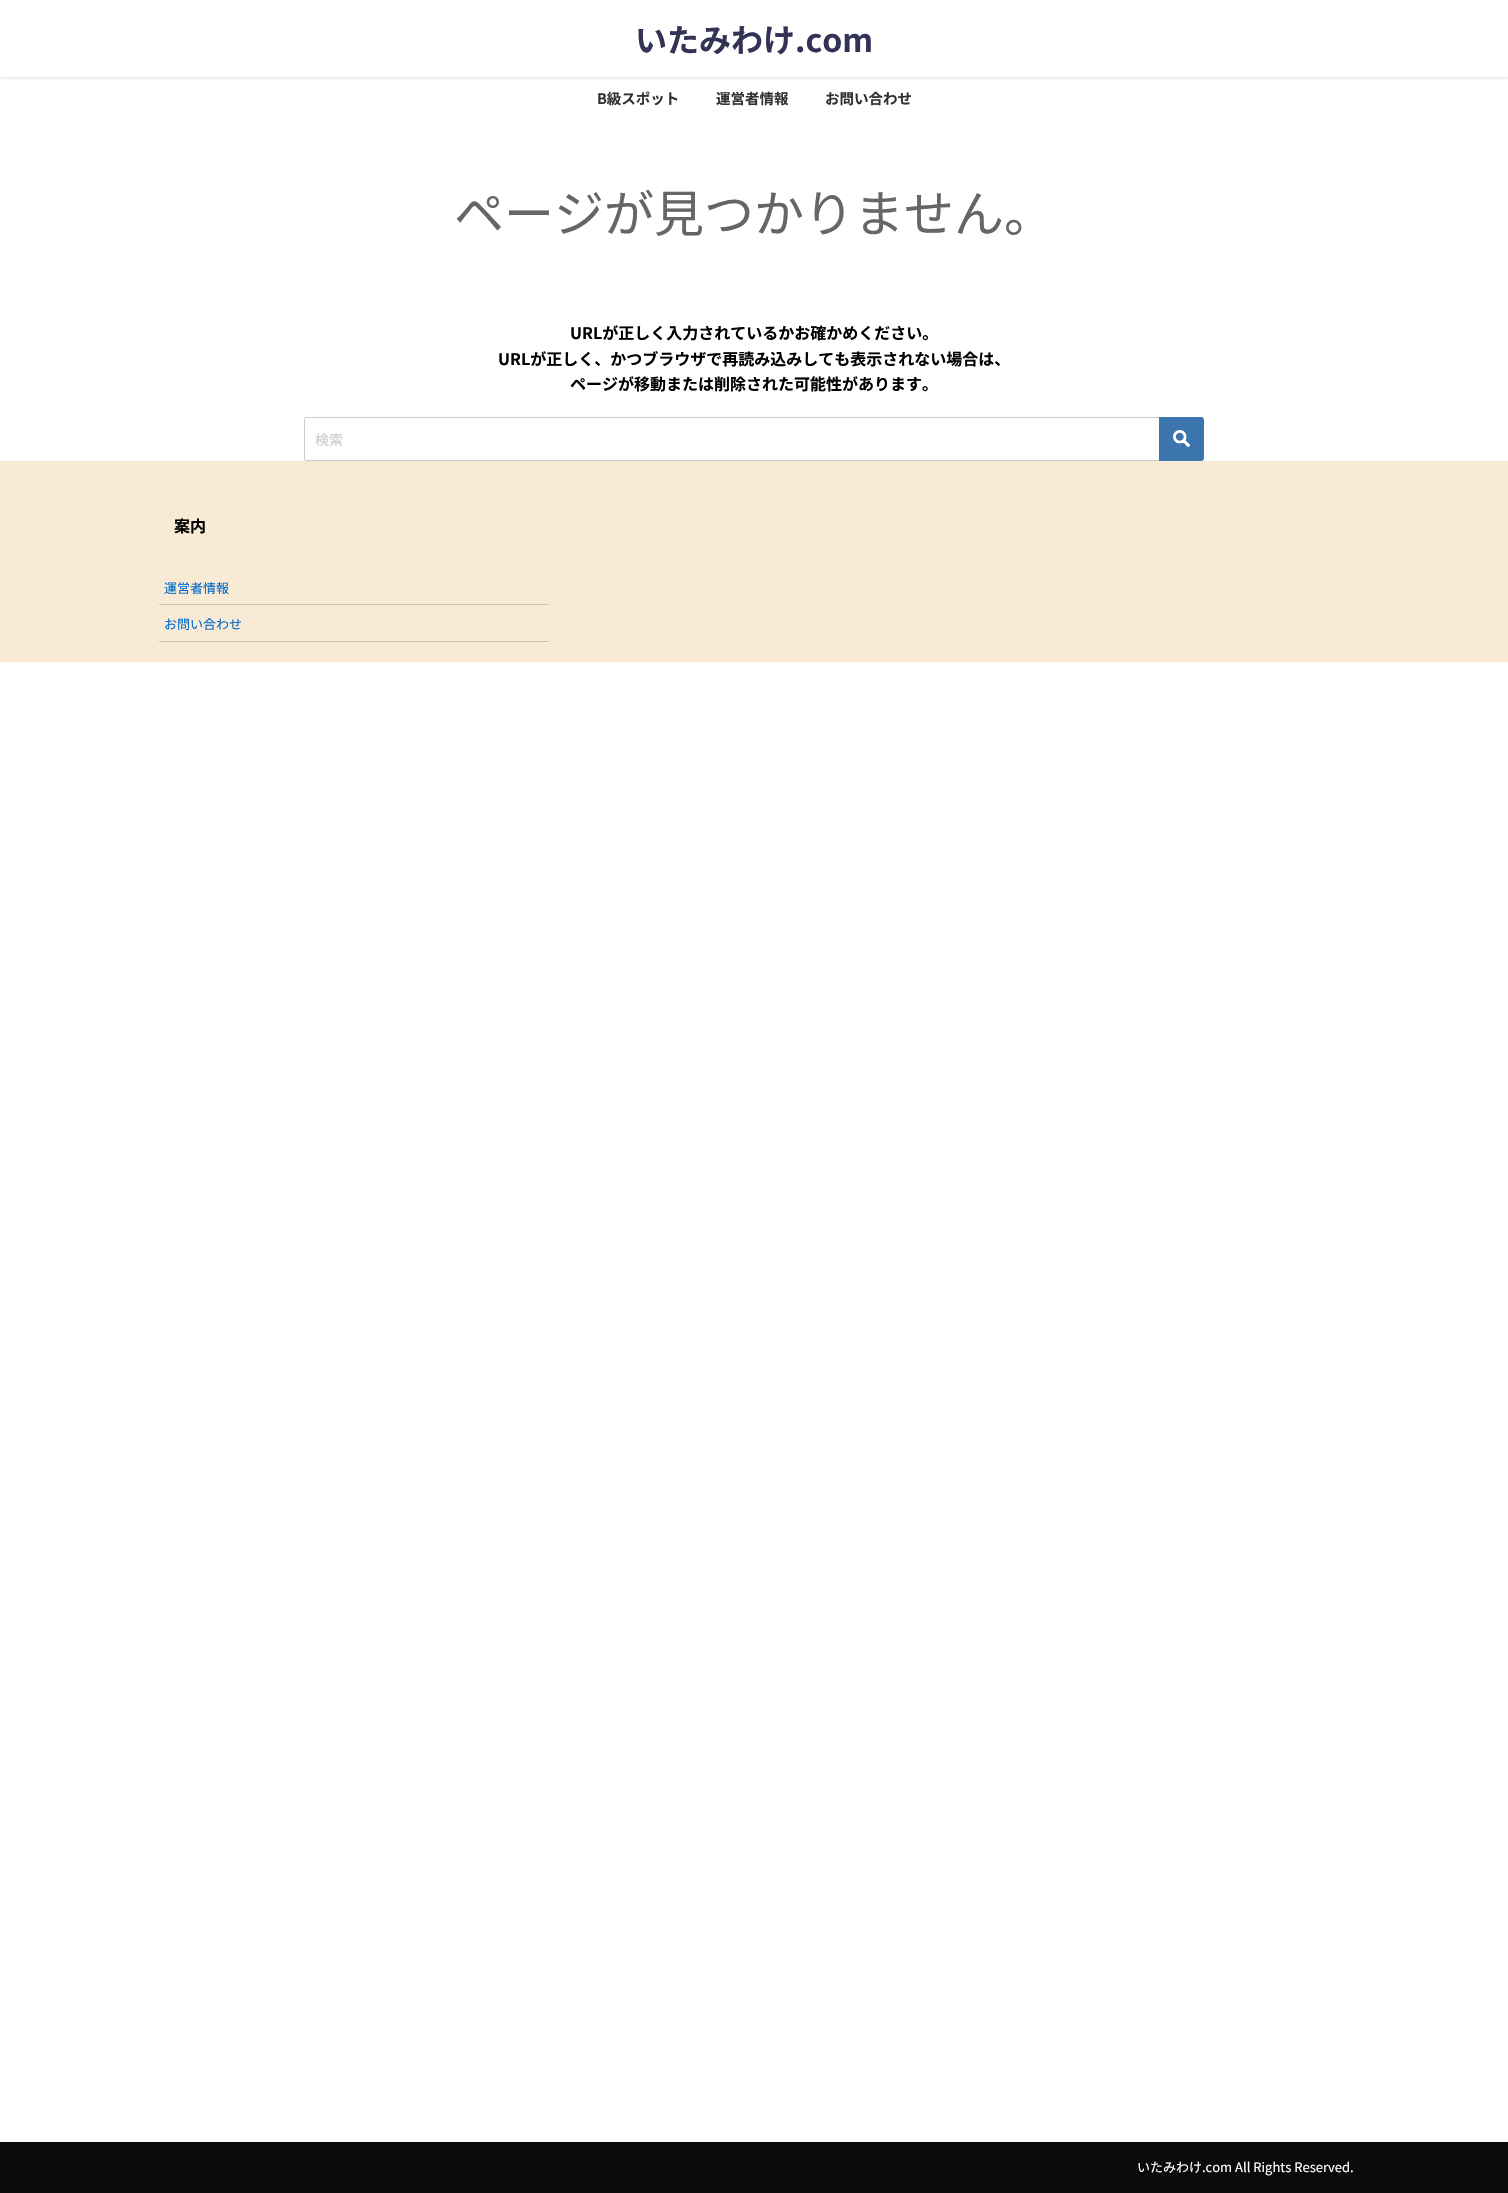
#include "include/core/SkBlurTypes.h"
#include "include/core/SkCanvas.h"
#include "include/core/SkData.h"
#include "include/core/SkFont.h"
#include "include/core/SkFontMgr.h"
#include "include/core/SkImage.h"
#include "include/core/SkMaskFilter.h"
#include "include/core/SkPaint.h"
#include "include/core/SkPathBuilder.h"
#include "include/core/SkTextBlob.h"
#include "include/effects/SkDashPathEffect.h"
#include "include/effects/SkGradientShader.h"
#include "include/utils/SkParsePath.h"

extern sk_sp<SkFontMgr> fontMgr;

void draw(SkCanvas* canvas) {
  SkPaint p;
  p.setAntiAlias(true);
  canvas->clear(SK_ColorWHITE);
  canvas->save();
  canvas->clipRect(SkRect::MakeLTRB(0, 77, 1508, 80));
  p.setColor(SkColorSetARGB(51, 0, 0, 0));
  p.setMaskFilter(SkMaskFilter::MakeBlur(kNormal_SkBlurStyle, 2));
  canvas->drawRect(SkRect::MakeLTRB(0, 0, 1508, 77), p);
  p.setMaskFilter(nullptr);
  canvas->restore();
  p.setStyle(SkPaint::kStroke_Style);
  p.setStrokeWidth(1);
  p.setColor(SkColorSetRGB(204, 204, 204));
  canvas->drawRoundRect(SkRect::MakeLTRB(304.5f, 417.5f, 1203.5f, 460.5f), 1.5f, 1.5f, p);
  p.setStyle(SkPaint::kFill_Style);
  p.setColor(SkColorSetRGB(60, 116, 173));
  canvas->drawPath(SkPathBuilder().moveTo(1159, 417).lineTo(1201, 417).cubicTo(1202.5f, 417, 1204, 418.5f, 1204, 420).lineTo(1204, 458).cubicTo(1204, 459.5f, 1202.5f, 461, 1201, 461).lineTo(1159, 461).close().detach(), p);
  canvas->drawImageRect(SkImages::DeferredFromEncodedData(SkData::MakeFromFileName("images/1.png")), SkRect::MakeLTRB(1173, 430, 1190, 447), SkSamplingOptions());
  p.setColor(SkColorSetRGB(248, 234, 213));
  canvas->drawRect(SkRect::MakeLTRB(0, 461, 1508, 662), p);
  p.setColor(SkColorSetRGB(208, 197, 180));
  canvas->drawRect(SkRect::MakeLTRB(159, 604, 549, 605), p);
  canvas->drawRect(SkRect::MakeLTRB(159, 641, 549, 642), p);
  p.setColor(SkColorSetRGB(10, 10, 10));
  canvas->drawRect(SkRect::MakeLTRB(0, 2142, 1508, 2193), p);
  SkFont font1(fontMgr->matchFamilyStyle("Noto Sans JP", SkFontStyle::Bold()), 32);
  font1.setSubpixel(true);
  p.setColor(SkColorSetRGB(51, 51, 85));
  canvas->drawString("いたみわけ.com", 635, 52, font1, p);
  SkFont font2(fontMgr->matchFamilyStyle("Noto Sans JP", SkFontStyle::Bold()), 14.5f);
  font2.setSubpixel(true);
  p.setColor(SkColorSetRGB(51, 51, 51));
  canvas->drawString("B級スポット", 597, 104, font2, p);
  canvas->drawString("運営者情報", 716, 104, font2, p);
  canvas->drawString("お問い合わせ", 825, 104, font2, p);
  SkFont font3(fontMgr->matchFamilyStyle("Noto Sans JP", SkFontStyle::Normal()), 50);
  font3.setSubpixel(true);
  p.setColor(SkColorSetRGB(102, 102, 102));
  canvas->drawString("ページが見つかりません。", 454, 232, font3, p);
  SkFont font4(fontMgr->matchFamilyStyle("Noto Sans JP", SkFontStyle::Bold()), 16);
  font4.setSubpixel(true);
  p.setColor(SK_ColorBLACK);
  canvas->drawString("URLが正しく入力されているかお確かめください。", 570, 339, font4, p);
  canvas->drawString("URLが正しく、かつブラウザで再読み込みしても表示されない場合は、", 498, 365, font4, p);
  canvas->drawString("ページが移動または削除された可能性があります。", 570, 390, font4, p);
  SkFont font5(fontMgr->matchFamilyStyle("Noto Sans JP", SkFontStyle::Normal()), 14);
  font5.setSubpixel(true);
  p.setColor(SkColorSetRGB(204, 204, 204));
  canvas->drawString("検索", 315, 445, font5, p);
  p.setColor(SK_ColorBLACK);
  canvas->drawString("案内", 174, 532, font4, p);
  SkFont font6(fontMgr->matchFamilyStyle("Noto Sans JP", SkFontStyle::Normal()), 13);
  font6.setSubpixel(true);
  p.setColor(SkColorSetRGB(0, 106, 204));
  canvas->drawString("運営者情報", 164, 593, font6, p);
  canvas->drawString("お問い合わせ", 164, 629, font6, p);
  p.setColor(SK_ColorWHITE);
  canvas->drawString("いたみわけ.com All Rights Reserved.", 1137, 2172, font6, p);
}
